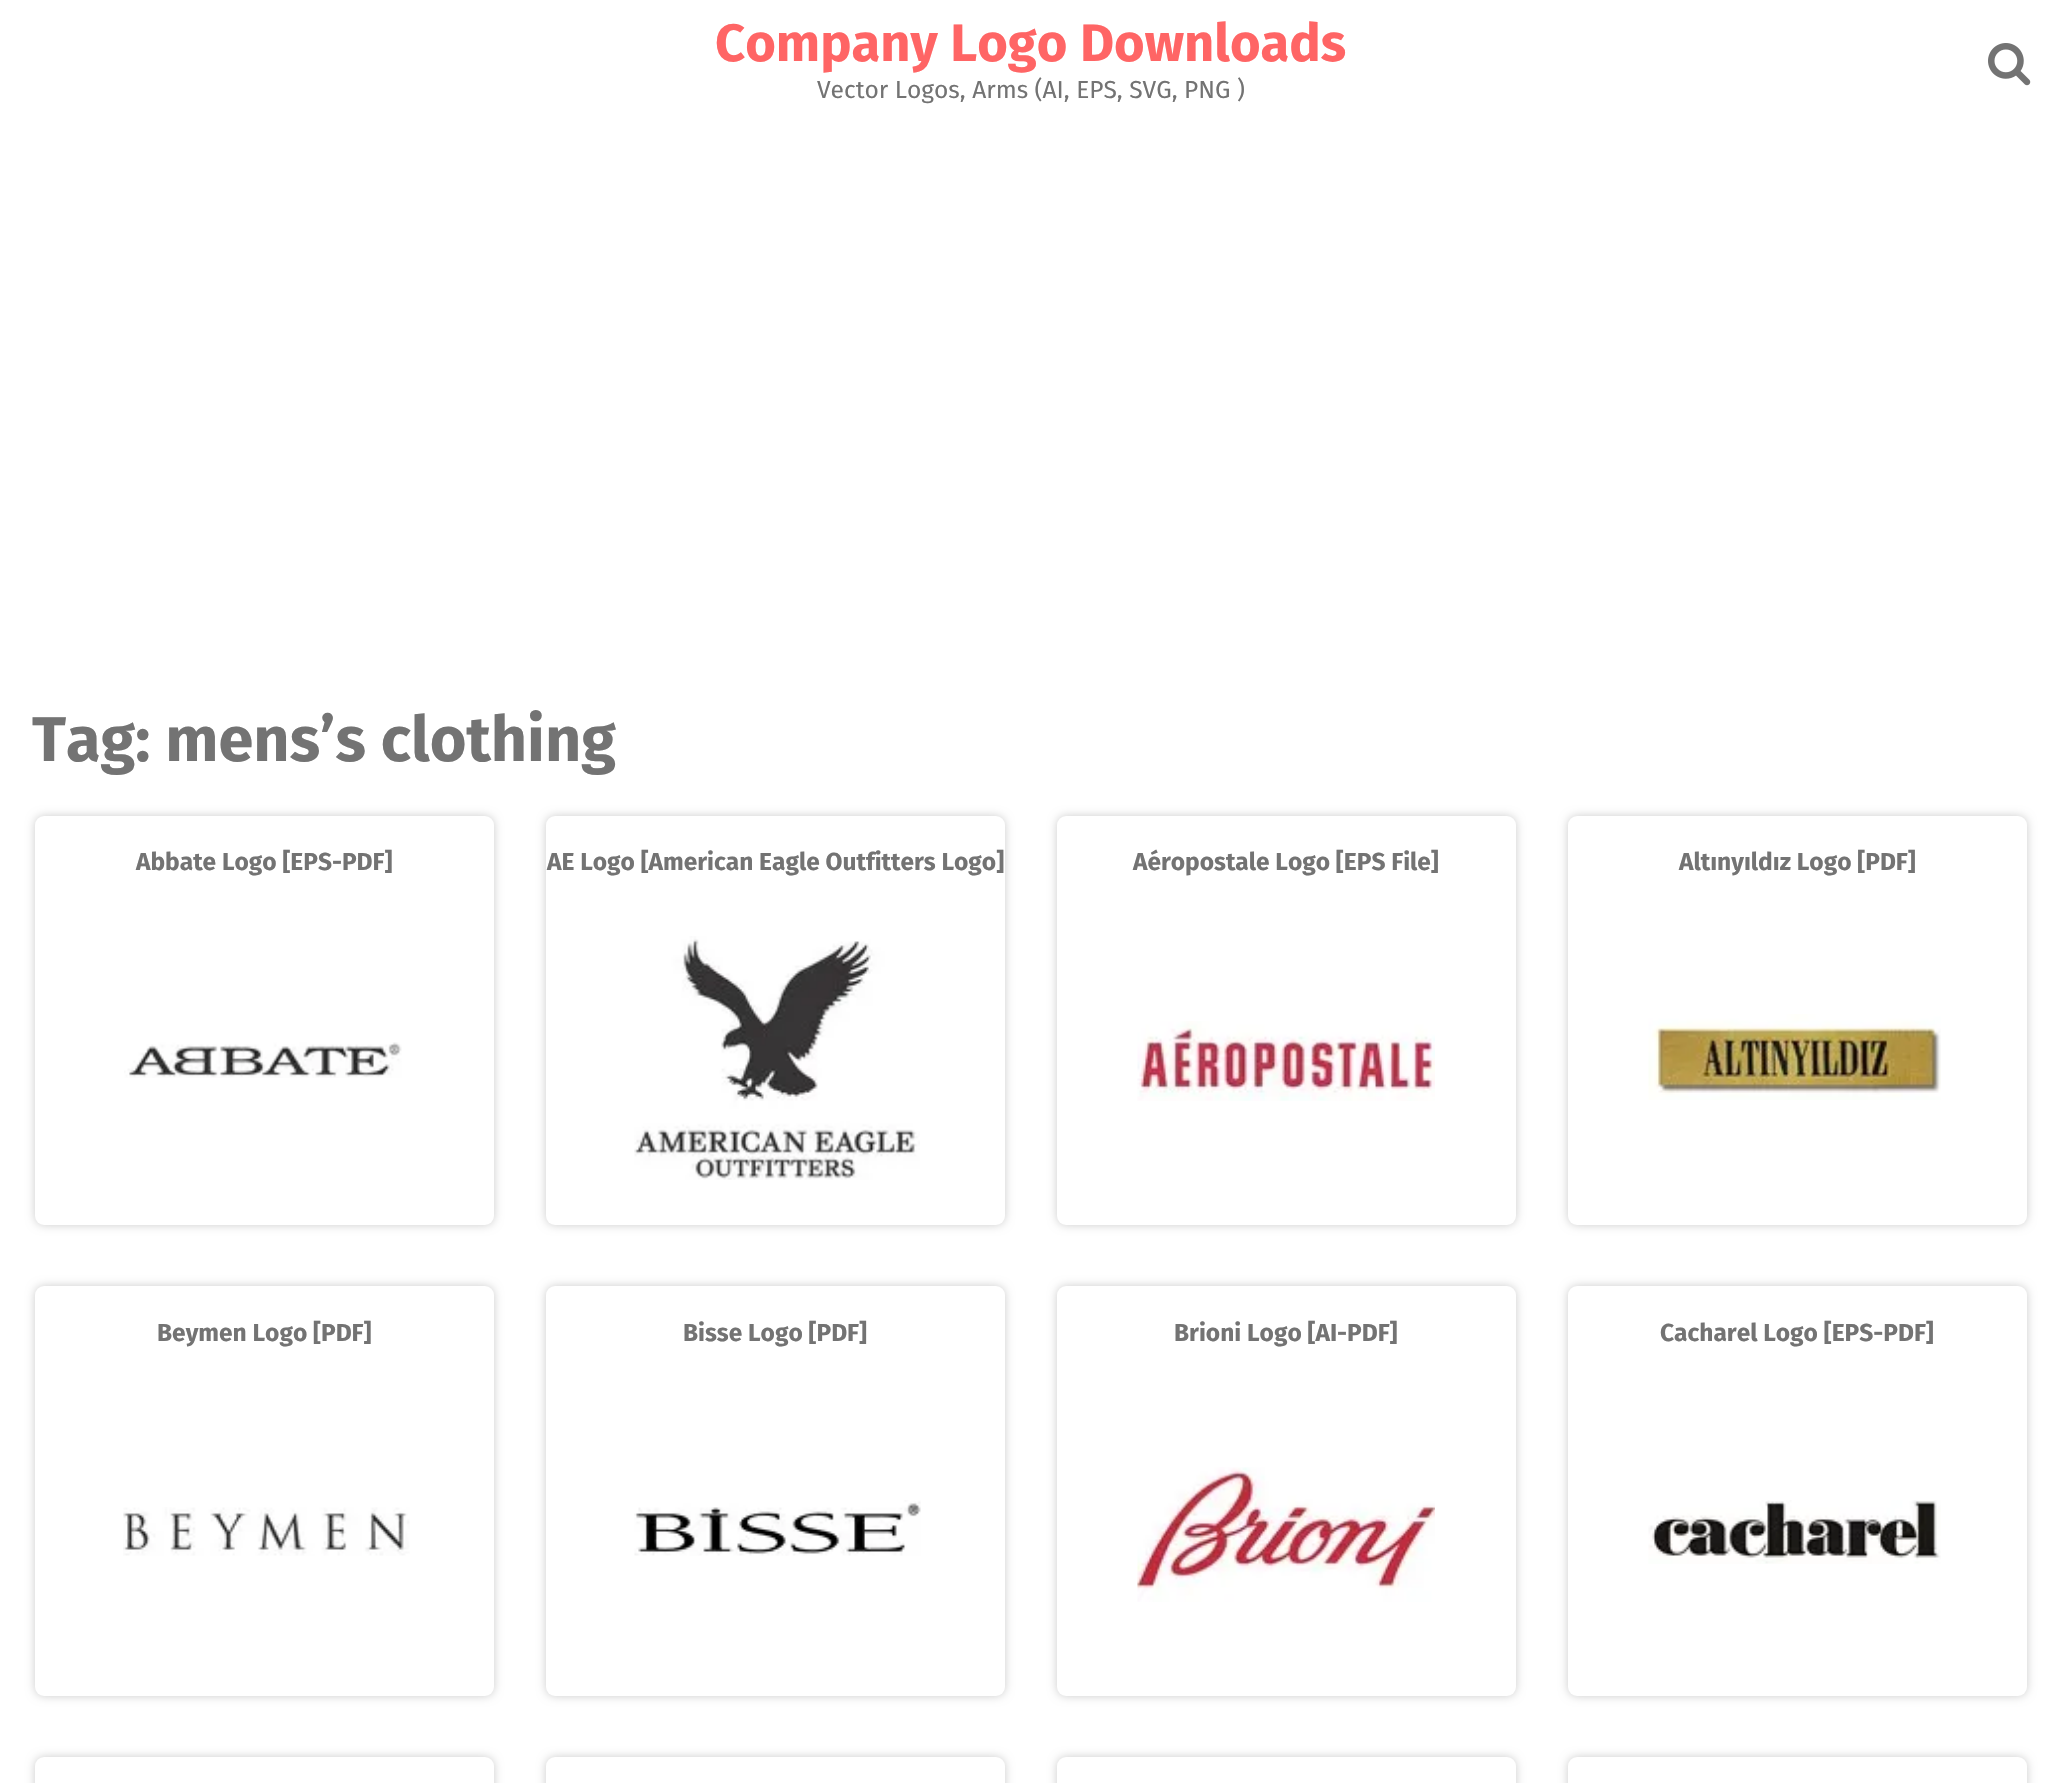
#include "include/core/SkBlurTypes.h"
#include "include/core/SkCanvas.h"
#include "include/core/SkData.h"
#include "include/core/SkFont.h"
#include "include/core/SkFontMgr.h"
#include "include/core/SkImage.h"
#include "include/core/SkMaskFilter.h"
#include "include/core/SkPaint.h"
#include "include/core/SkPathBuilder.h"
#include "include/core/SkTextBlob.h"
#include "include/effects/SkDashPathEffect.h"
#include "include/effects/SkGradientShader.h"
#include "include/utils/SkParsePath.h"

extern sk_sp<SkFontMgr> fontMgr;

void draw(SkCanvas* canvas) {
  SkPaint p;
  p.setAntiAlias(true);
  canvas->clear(SK_ColorWHITE);
  canvas->drawImageRect(SkImages::DeferredFromEncodedData(SkData::MakeFromFileName("images/1.png")), SkRect::MakeLTRB(1988, 43, 2031, 86), SkSamplingOptions());
  p.setColor(SkColorSetARGB(51, 0, 0, 0));
  p.setMaskFilter(SkMaskFilter::MakeBlur(kNormal_SkBlurStyle, 5));
  canvas->drawRoundRect(SkRect::MakeLTRB(35, 816, 494, 1225), 9, 9, p);
  p.setMaskFilter(nullptr);
  p.setColor(SK_ColorWHITE);
  canvas->drawRoundRect(SkRect::MakeLTRB(35, 816, 494, 1225), 9, 9, p);
  canvas->drawImageRect(SkImages::DeferredFromEncodedData(SkData::MakeFromFileName("images/2.png")), SkRect::MakeLTRB(124, 1042, 402, 1078), SkSamplingOptions());
  p.setColor(SkColorSetARGB(51, 0, 0, 0));
  p.setMaskFilter(SkMaskFilter::MakeBlur(kNormal_SkBlurStyle, 5));
  canvas->drawRoundRect(SkRect::MakeLTRB(546, 816, 1005, 1225), 9, 9, p);
  p.setMaskFilter(nullptr);
  p.setColor(SK_ColorWHITE);
  canvas->drawRoundRect(SkRect::MakeLTRB(546, 816, 1005, 1225), 9, 9, p);
  canvas->drawImageRect(SkImages::DeferredFromEncodedData(SkData::MakeFromFileName("images/3.png")), SkRect::MakeLTRB(634, 936, 920, 1180), SkSamplingOptions());
  p.setColor(SkColorSetARGB(51, 0, 0, 0));
  p.setMaskFilter(SkMaskFilter::MakeBlur(kNormal_SkBlurStyle, 5));
  canvas->drawRoundRect(SkRect::MakeLTRB(1057, 816, 1516, 1225), 9, 9, p);
  p.setMaskFilter(nullptr);
  p.setColor(SK_ColorWHITE);
  canvas->drawRoundRect(SkRect::MakeLTRB(1057, 816, 1516, 1225), 9, 9, p);
  canvas->drawImageRect(SkImages::DeferredFromEncodedData(SkData::MakeFromFileName("images/4.png")), SkRect::MakeLTRB(1137, 1021, 1435, 1101), SkSamplingOptions());
  p.setColor(SkColorSetARGB(51, 0, 0, 0));
  p.setMaskFilter(SkMaskFilter::MakeBlur(kNormal_SkBlurStyle, 5));
  canvas->drawRoundRect(SkRect::MakeLTRB(1568, 816, 2027, 1225), 9, 9, p);
  p.setMaskFilter(nullptr);
  p.setColor(SK_ColorWHITE);
  canvas->drawRoundRect(SkRect::MakeLTRB(1568, 816, 2027, 1225), 9, 9, p);
  canvas->drawImageRect(SkImages::DeferredFromEncodedData(SkData::MakeFromFileName("images/5.png")), SkRect::MakeLTRB(1648, 1014, 1941, 1100), SkSamplingOptions());
  p.setColor(SkColorSetARGB(51, 0, 0, 0));
  p.setMaskFilter(SkMaskFilter::MakeBlur(kNormal_SkBlurStyle, 5));
  canvas->drawRoundRect(SkRect::MakeLTRB(35, 1286, 494, 1696), 9, 9, p);
  p.setMaskFilter(nullptr);
  p.setColor(SK_ColorWHITE);
  canvas->drawRoundRect(SkRect::MakeLTRB(35, 1286, 494, 1696), 9, 9, p);
  canvas->drawImageRect(SkImages::DeferredFromEncodedData(SkData::MakeFromFileName("images/6.png")), SkRect::MakeLTRB(123, 1507, 410, 1556), SkSamplingOptions());
  p.setColor(SkColorSetARGB(51, 0, 0, 0));
  p.setMaskFilter(SkMaskFilter::MakeBlur(kNormal_SkBlurStyle, 5));
  canvas->drawRoundRect(SkRect::MakeLTRB(546, 1286, 1005, 1696), 9, 9, p);
  p.setMaskFilter(nullptr);
  p.setColor(SK_ColorWHITE);
  canvas->drawRoundRect(SkRect::MakeLTRB(546, 1286, 1005, 1696), 9, 9, p);
  canvas->drawImageRect(SkImages::DeferredFromEncodedData(SkData::MakeFromFileName("images/7.png")), SkRect::MakeLTRB(634, 1500, 921, 1556), SkSamplingOptions());
  p.setColor(SkColorSetARGB(51, 0, 0, 0));
  p.setMaskFilter(SkMaskFilter::MakeBlur(kNormal_SkBlurStyle, 5));
  canvas->drawRoundRect(SkRect::MakeLTRB(1057, 1286, 1516, 1696), 9, 9, p);
  p.setMaskFilter(nullptr);
  p.setColor(SK_ColorWHITE);
  canvas->drawRoundRect(SkRect::MakeLTRB(1057, 1286, 1516, 1696), 9, 9, p);
  canvas->drawImageRect(SkImages::DeferredFromEncodedData(SkData::MakeFromFileName("images/8.png")), SkRect::MakeLTRB(1137, 1467, 1435, 1602), SkSamplingOptions());
  p.setColor(SkColorSetARGB(51, 0, 0, 0));
  p.setMaskFilter(SkMaskFilter::MakeBlur(kNormal_SkBlurStyle, 5));
  canvas->drawRoundRect(SkRect::MakeLTRB(1568, 1286, 2027, 1696), 9, 9, p);
  p.setMaskFilter(nullptr);
  p.setColor(SK_ColorWHITE);
  canvas->drawRoundRect(SkRect::MakeLTRB(1568, 1286, 2027, 1696), 9, 9, p);
  canvas->drawImageRect(SkImages::DeferredFromEncodedData(SkData::MakeFromFileName("images/9.png")), SkRect::MakeLTRB(1648, 1500, 1941, 1564), SkSamplingOptions());
  p.setColor(SkColorSetARGB(51, 0, 0, 0));
  p.setMaskFilter(SkMaskFilter::MakeBlur(kNormal_SkBlurStyle, 5));
  canvas->drawRoundRect(SkRect::MakeLTRB(35, 1757, 494, 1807), 9, 9, p);
  p.setMaskFilter(nullptr);
  p.setColor(SK_ColorWHITE);
  canvas->drawRoundRect(SkRect::MakeLTRB(35, 1757, 494, 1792), 9, 9, p);
  p.setColor(SkColorSetARGB(51, 0, 0, 0));
  p.setMaskFilter(SkMaskFilter::MakeBlur(kNormal_SkBlurStyle, 5));
  canvas->drawRoundRect(SkRect::MakeLTRB(546, 1757, 1005, 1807), 9, 9, p);
  p.setMaskFilter(nullptr);
  p.setColor(SK_ColorWHITE);
  canvas->drawRoundRect(SkRect::MakeLTRB(546, 1757, 1005, 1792), 9, 9, p);
  p.setColor(SkColorSetARGB(51, 0, 0, 0));
  p.setMaskFilter(SkMaskFilter::MakeBlur(kNormal_SkBlurStyle, 5));
  canvas->drawRoundRect(SkRect::MakeLTRB(1057, 1757, 1516, 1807), 9, 9, p);
  p.setMaskFilter(nullptr);
  p.setColor(SK_ColorWHITE);
  canvas->drawRoundRect(SkRect::MakeLTRB(1057, 1757, 1516, 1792), 9, 9, p);
  p.setColor(SkColorSetARGB(51, 0, 0, 0));
  p.setMaskFilter(SkMaskFilter::MakeBlur(kNormal_SkBlurStyle, 5));
  canvas->drawRoundRect(SkRect::MakeLTRB(1568, 1757, 2027, 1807), 9, 9, p);
  p.setMaskFilter(nullptr);
  p.setColor(SK_ColorWHITE);
  canvas->drawRoundRect(SkRect::MakeLTRB(1568, 1757, 2027, 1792), 9, 9, p);
  SkFont font1(fontMgr->matchFamilyStyle("Fira Sans", SkFontStyle::Bold()), 52.5f);
  font1.setSubpixel(true);
  p.setColor(SkColorSetRGB(255, 101, 101));
  canvas->drawString("Company Logo Downloads", 715, 61, font1, p);
  SkFont font2(fontMgr->matchFamilyStyle("Fira Sans", SkFontStyle::Normal()), 24.5f);
  font2.setSubpixel(true);
  p.setColor(SkColorSetRGB(115, 115, 115));
  canvas->drawString("Vector Logos, Arms (AI, EPS, SVG, PNG )", 817, 98, font2, p);
  SkFont font3(fontMgr->matchFamilyStyle("Fira Sans", SkFontStyle::Bold()), 63);
  font3.setSubpixel(true);
  canvas->drawString("Tag: mens’s clothing", 32, 761, font3, p);
  SkFont font4(fontMgr->matchFamilyStyle("Fira Sans", SkFontStyle::Bold()), 24.5f);
  font4.setSubpixel(true);
  canvas->drawString("Abbate Logo [EPS-PDF]", 136, 870, font4, p);
  canvas->drawString("AE Logo [American Eagle Outfitters Logo]", 547, 870, font4, p);
  canvas->drawString("Aéropostale Logo [EPS File]", 1133, 870, font4, p);
  canvas->drawString("Altınyıldız Logo [PDF]", 1679, 870, font4, p);
  canvas->drawString("Beymen Logo [PDF]", 157, 1341, font4, p);
  canvas->drawString("Bisse Logo [PDF]", 683, 1341, font4, p);
  canvas->drawString("Brioni Logo [AI-PDF]", 1174, 1341, font4, p);
  canvas->drawString("Cacharel Logo [EPS-PDF]", 1660, 1341, font4, p);
}
